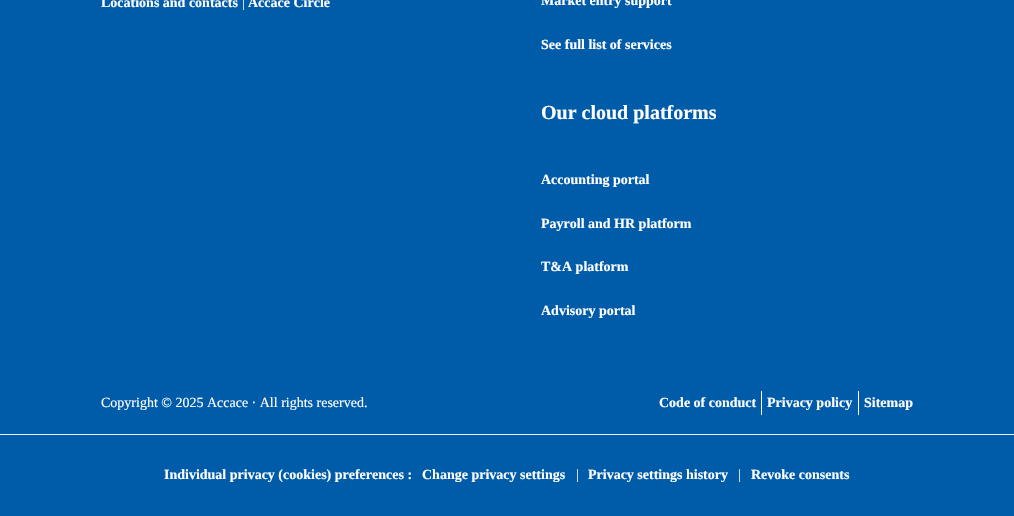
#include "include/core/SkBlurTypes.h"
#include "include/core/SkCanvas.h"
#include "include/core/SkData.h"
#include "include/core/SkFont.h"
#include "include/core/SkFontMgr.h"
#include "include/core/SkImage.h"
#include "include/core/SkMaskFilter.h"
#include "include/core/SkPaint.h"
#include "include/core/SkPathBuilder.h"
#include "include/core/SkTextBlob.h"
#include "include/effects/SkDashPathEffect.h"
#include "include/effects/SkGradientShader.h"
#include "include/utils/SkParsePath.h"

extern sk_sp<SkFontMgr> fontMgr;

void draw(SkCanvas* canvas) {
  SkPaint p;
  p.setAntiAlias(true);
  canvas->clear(SkColorSetRGB(0, 92, 169));
  p.setColor(SK_ColorWHITE);
  canvas->drawRect(SkRect::MakeLTRB(761, 391, 762, 415), p);
  canvas->drawRect(SkRect::MakeLTRB(858, 391, 859, 415), p);
  p.setColor(SkColorSetRGB(230, 244, 255));
  canvas->drawRect(SkRect::MakeLTRB(0, 434, 1014, 435), p);
  SkFont font1(fontMgr->matchFamilyStyle("Liberation Serif", SkFontStyle::Bold()), 14);
  font1.setSubpixel(true);
  p.setColor(SK_ColorWHITE);
  canvas->drawString("Locations and contacts", 101, 7, font1, p);
  SkFont font2(fontMgr->matchFamilyStyle("Liberation Serif", SkFontStyle::Normal()), 14);
  font2.setSubpixel(true);
  canvas->drawString("|", 242, 7, font2, p);
  canvas->drawString("Accace Circle", 248, 7, font1, p);
  canvas->drawString("Market entry support", 541, 5, font1, p);
  canvas->drawString("See full list of services", 541, 49, font1, p);
  SkFont font3(fontMgr->matchFamilyStyle("Liberation Serif", SkFontStyle::Bold()), 20);
  font3.setSubpixel(true);
  canvas->drawString("Our cloud platforms", 541, 119, font3, p);
  canvas->drawString("Accounting portal", 541, 184, font1, p);
  canvas->drawString("Payroll and HR platform", 541, 228, font1, p);
  canvas->drawString("T&A platform", 541, 271, font1, p);
  canvas->drawString("Advisory portal", 541, 315, font1, p);
  canvas->drawString("Copyright © 2025 Accace · All rights reserved.", 101, 407, font2, p);
  canvas->drawString("Code of conduct", 659, 407, font1, p);
  canvas->drawString("Privacy policy", 767, 407, font1, p);
  canvas->drawString("Sitemap", 864, 407, font1, p);
  canvas->drawString("Individual privacy (cookies) preferences :", 164, 479, font1, p);
  canvas->drawString("Change privacy settings", 422, 479, font1, p);
  canvas->drawString("|", 576, 479, font2, p);
  canvas->drawString("Privacy settings history", 588, 479, font1, p);
  canvas->drawString("|", 738, 479, font2, p);
  canvas->drawString("Revoke consents", 751, 479, font1, p);
}
